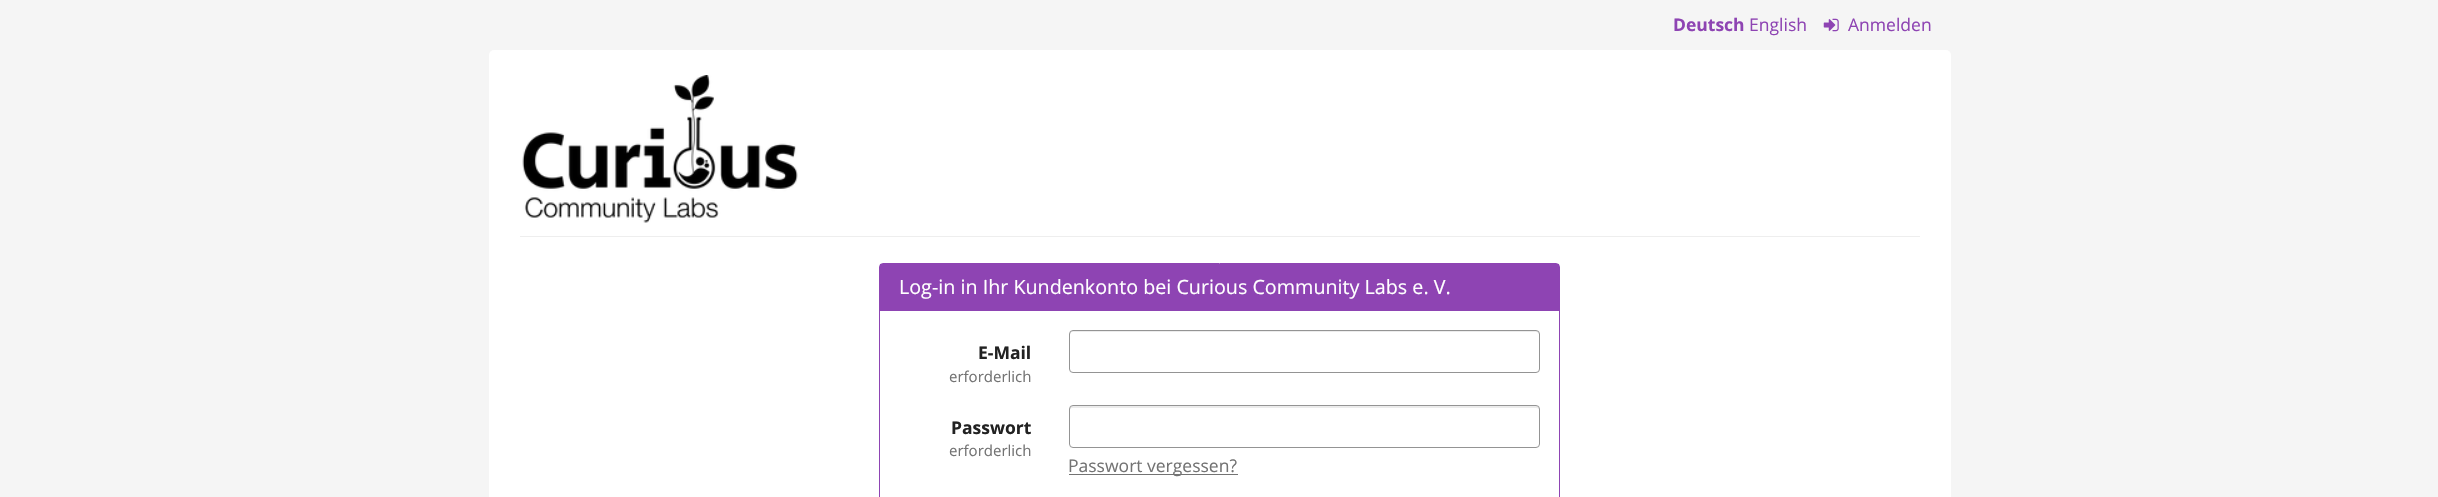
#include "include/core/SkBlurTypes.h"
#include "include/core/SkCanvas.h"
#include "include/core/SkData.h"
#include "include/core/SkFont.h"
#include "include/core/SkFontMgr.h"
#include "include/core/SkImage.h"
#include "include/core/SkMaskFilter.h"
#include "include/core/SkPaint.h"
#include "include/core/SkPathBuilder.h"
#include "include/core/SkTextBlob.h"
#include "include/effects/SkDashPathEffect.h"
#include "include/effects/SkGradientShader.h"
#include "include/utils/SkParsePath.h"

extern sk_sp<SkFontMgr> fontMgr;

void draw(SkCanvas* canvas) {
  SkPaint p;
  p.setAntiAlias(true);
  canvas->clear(SkColorSetRGB(245, 245, 245));
  canvas->drawImageRect(SkImages::DeferredFromEncodedData(SkData::MakeFromFileName("images/1.png")), SkRect::MakeLTRB(1823, 18, 1839, 32), SkSamplingOptions());
  p.setColor(SK_ColorWHITE);
  canvas->drawRoundRect(SkRect::MakeLTRB(489, 50, 1951, 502), 5, 5, p);
  p.setColor(SkColorSetRGB(238, 238, 238));
  canvas->drawRect(SkRect::MakeLTRB(520, 236, 1920, 237), p);
  canvas->drawImageRect(SkImages::DeferredFromEncodedData(SkData::MakeFromFileName("images/2.png")), SkRect::MakeLTRB(522, 75, 798, 223), SkSamplingOptions());
  p.setStyle(SkPaint::kStroke_Style);
  p.setStrokeWidth(1);
  p.setColor(SkColorSetRGB(142, 68, 179));
  canvas->drawRoundRect(SkRect::MakeLTRB(879.5f, 263.5f, 1559.5f, 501.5f), 3.5f, 3.5f, p);
  p.setStyle(SkPaint::kFill_Style);
  canvas->drawRect(SkRect::MakeLTRB(880, 264, 1559, 311), p);
  p.setColor(SkColorSetRGB(236, 236, 236));
  canvas->drawPath(SkPathBuilder().moveTo(1072, 332).lineTo(1536, 332).cubicTo(1538, 332, 1539, 334, 1539, 335).cubicTo(1539, 333, 1539, 331, 1536, 331).lineTo(1072, 331).lineTo(1070, 332).lineTo(1070, 335).cubicTo(1070, 334, 1071, 332, 1072, 332).close().detach(), p);
  p.setStyle(SkPaint::kStroke_Style);
  p.setColor(SkColorSetRGB(148, 148, 148));
  canvas->drawRoundRect(SkRect::MakeLTRB(1069.5f, 330.5f, 1539.5f, 372.5f), 3.5f, 3.5f, p);
  p.setStyle(SkPaint::kFill_Style);
  p.setColor(SkColorSetRGB(236, 236, 236));
  canvas->drawPath(SkPathBuilder().moveTo(1072, 408).lineTo(1536, 408).cubicTo(1538, 408, 1539, 409, 1539, 410).cubicTo(1539, 408, 1539, 406, 1536, 406).lineTo(1072, 406).lineTo(1070, 407).lineTo(1070, 410).cubicTo(1070, 409, 1071, 408, 1072, 408).close().detach(), p);
  p.setStyle(SkPaint::kStroke_Style);
  p.setColor(SkColorSetRGB(148, 148, 148));
  canvas->drawRoundRect(SkRect::MakeLTRB(1069.5f, 405.5f, 1539.5f, 447.5f), 3.5f, 3.5f, p);
  p.setStyle(SkPaint::kFill_Style);
  p.setColor(SkColorSetRGB(115, 115, 115));
  canvas->drawRect(SkRect::MakeLTRB(1069, 474, 1238, 475), p);
  SkFont font1(fontMgr->matchFamilyStyle("Open Sans", SkFontStyle::Bold()), 17.5f);
  font1.setSubpixel(true);
  p.setColor(SkColorSetRGB(142, 68, 179));
  canvas->drawString("Deutsch", 1673, 31, font1, p);
  SkFont font2(fontMgr->matchFamilyStyle("Open Sans", SkFontStyle::Normal()), 17.5f);
  font2.setSubpixel(true);
  canvas->drawString("English", 1749, 31, font2, p);
  canvas->drawString("Anmelden", 1848, 31, font2, p);
  SkFont font3(fontMgr->matchFamilyStyle("Open Sans", SkFontStyle::Normal()), 19.7f);
  font3.setSubpixel(true);
  p.setColor(SK_ColorWHITE);
  canvas->drawString("Log-in in Ihr Kundenkonto bei Curious Community Labs e. V.", 899, 294, font3, p);
  p.setColor(SkColorSetRGB(34, 34, 34));
  canvas->drawString("E-Mail", 978, 359, font1, p);
  SkFont font4(fontMgr->matchFamilyStyle("Open Sans", SkFontStyle::Normal()), 15);
  font4.setSubpixel(true);
  p.setColor(SkColorSetRGB(115, 115, 115));
  canvas->drawString("erforderlich", 949, 382, font4, p);
  p.setColor(SkColorSetRGB(34, 34, 34));
  canvas->drawString("Passwort", 951, 434, font1, p);
  p.setColor(SkColorSetRGB(115, 115, 115));
  canvas->drawString("erforderlich", 949, 456, font4, p);
  canvas->drawString("Passwort vergessen?", 1068, 472, font2, p);
}
